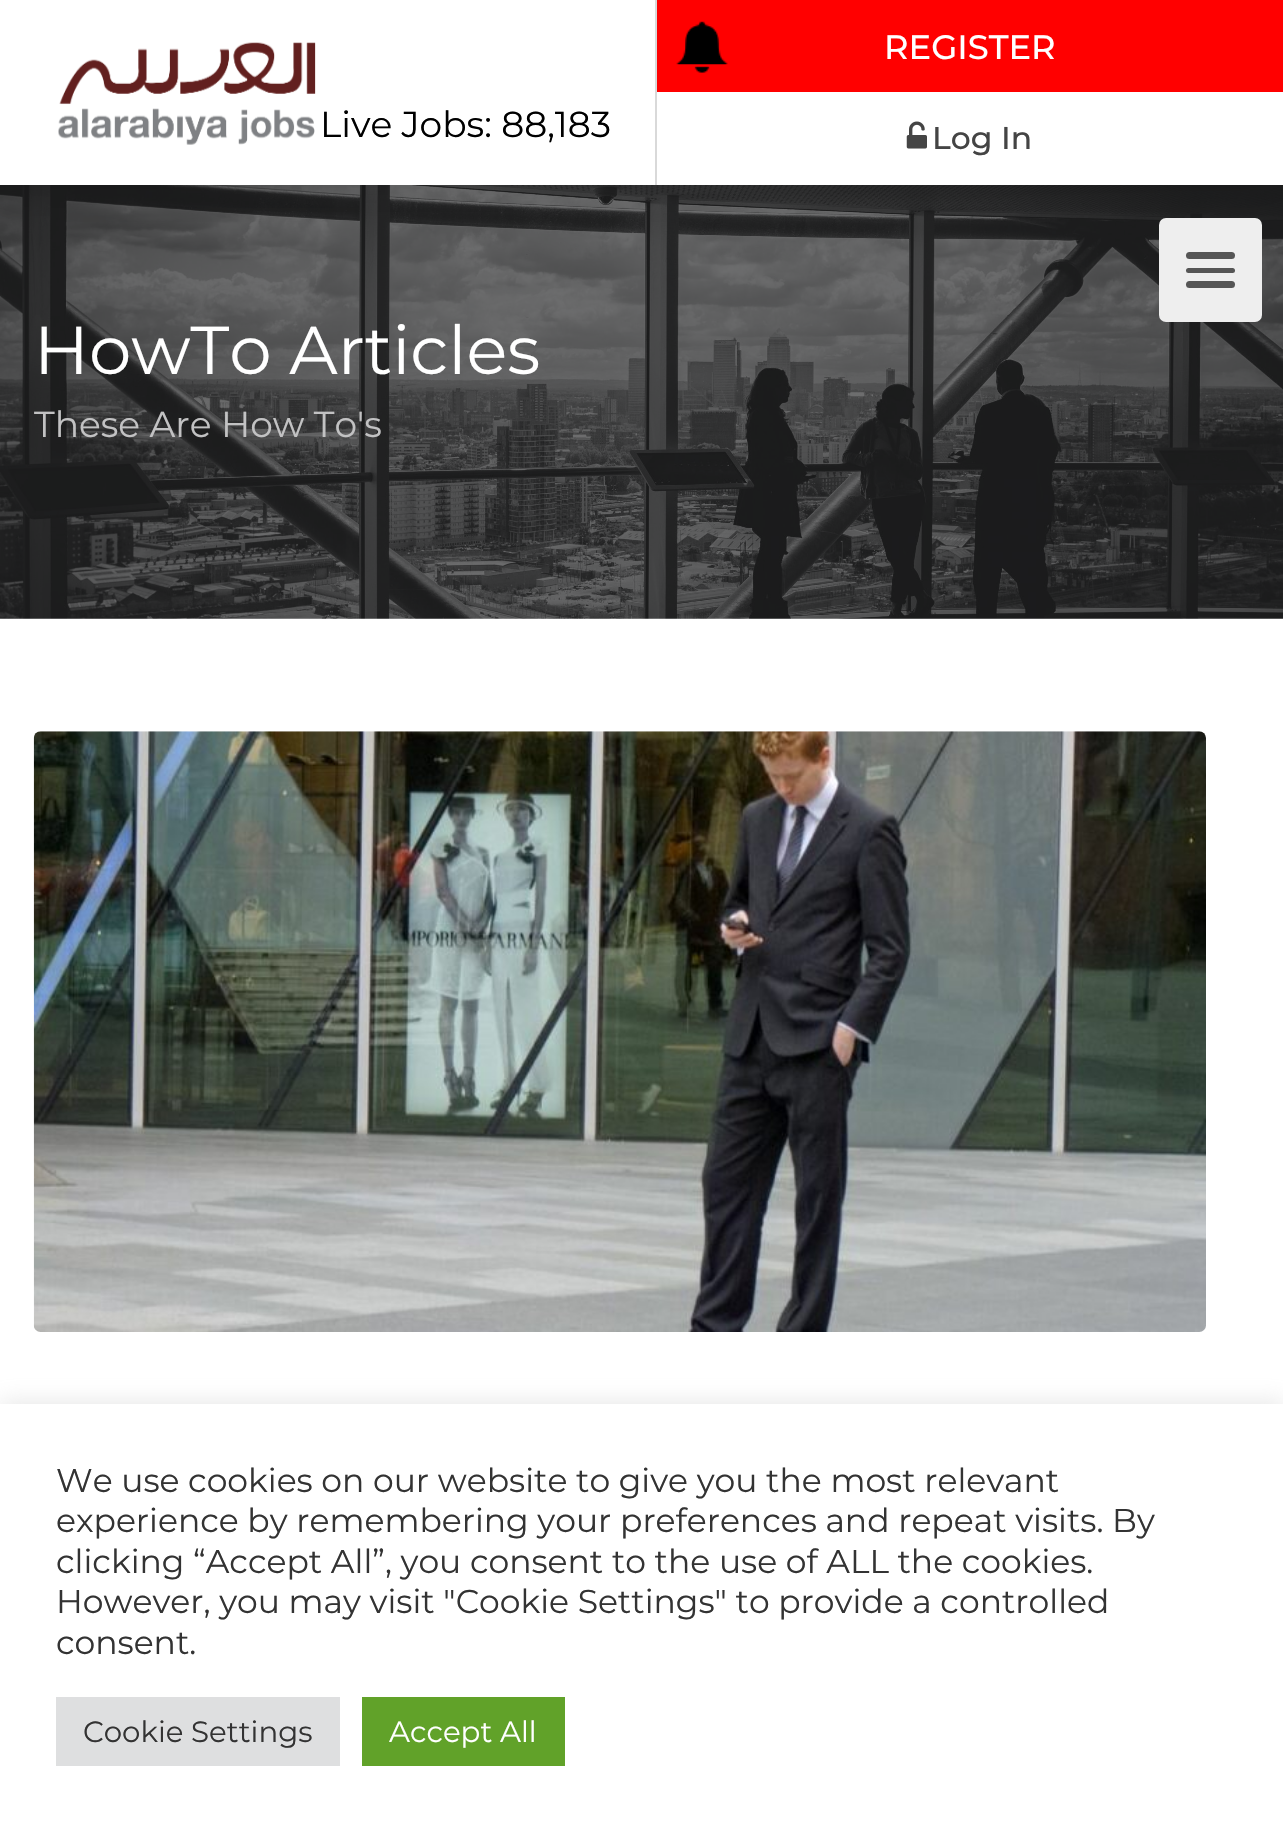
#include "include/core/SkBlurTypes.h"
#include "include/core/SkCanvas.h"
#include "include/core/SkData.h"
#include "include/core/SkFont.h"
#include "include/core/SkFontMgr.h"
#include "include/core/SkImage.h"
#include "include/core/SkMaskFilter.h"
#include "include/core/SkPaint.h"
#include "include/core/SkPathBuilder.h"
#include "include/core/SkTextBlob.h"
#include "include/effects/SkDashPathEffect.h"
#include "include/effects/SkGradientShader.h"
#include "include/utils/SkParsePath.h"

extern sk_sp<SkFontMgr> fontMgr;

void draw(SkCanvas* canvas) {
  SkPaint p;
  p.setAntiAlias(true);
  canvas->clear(SK_ColorWHITE);
  canvas->drawImageRect(SkImages::DeferredFromEncodedData(SkData::MakeFromFileName("images/4.png")), SkRect::MakeLTRB(0, 185, 1283, 619), SkSamplingOptions());
  p.setColor(SkColorSetARGB(31, 0, 0, 0));
  p.setMaskFilter(SkMaskFilter::MakeBlur(kNormal_SkBlurStyle, 20));
  canvas->drawRect(SkRect::MakeLTRB(0, 0, 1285, 185), p);
  p.setMaskFilter(nullptr);
  p.setColor(SK_ColorWHITE);
  canvas->drawRect(SkRect::MakeLTRB(0, 0, 1283, 185), p);
  canvas->drawImageRect(SkImages::DeferredFromEncodedData(SkData::MakeFromFileName("images/1.png")), SkRect::MakeLTRB(58, 42, 316, 145), SkSamplingOptions());
  p.setColor(SkColorSetRGB(217, 217, 217));
  canvas->drawRect(SkRect::MakeLTRB(655, 0, 657, 185), p);
  p.setColor(SkColorSetRGB(255, 0, 0));
  canvas->drawRect(SkRect::MakeLTRB(657, 0, 1283, 92), p);
  canvas->drawImageRect(SkImages::DeferredFromEncodedData(SkData::MakeFromFileName("images/2.png")), SkRect::MakeLTRB(676, 21, 728, 73), SkSamplingOptions());
  canvas->drawImageRect(SkImages::DeferredFromEncodedData(SkData::MakeFromFileName("images/3.png")), SkRect::MakeLTRB(906, 121, 927, 149), SkSamplingOptions());
  p.setColor(SkColorSetRGB(238, 238, 238));
  canvas->drawRoundRect(SkRect::MakeLTRB(1159, 218, 1262, 322), 7, 7, p);
  p.setColor(SkColorSetRGB(85, 85, 85));
  canvas->drawRoundRect(SkRect::MakeLTRB(1186, 281, 1235, 288), 3.5f, 3.5f, p);
  canvas->drawRoundRect(SkRect::MakeLTRB(1186, 252, 1235, 259), 3.5f, 3.5f, p);
  canvas->drawRoundRect(SkRect::MakeLTRB(1186, 268, 1235, 273), 2.5f, 2.5f, p);
  canvas->drawImageRect(SkImages::DeferredFromEncodedData(SkData::MakeFromFileName("images/5.png")), SkRect::MakeLTRB(33, 731, 1206, 1332), SkSamplingOptions());
  p.setColor(SkColorSetARGB(77, 172, 171, 171));
  p.setMaskFilter(SkMaskFilter::MakeBlur(kNormal_SkBlurStyle, 11));
  canvas->drawRect(SkRect::MakeLTRB(0, 1402, 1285, 1832), p);
  p.setMaskFilter(nullptr);
  p.setColor(SK_ColorWHITE);
  canvas->drawRect(SkRect::MakeLTRB(0, 1404, 1283, 1833), p);
  p.setColor(SkColorSetRGB(222, 223, 224));
  canvas->drawRect(SkRect::MakeLTRB(56, 1697, 340, 1766), p);
  p.setColor(SkColorSetRGB(97, 162, 41));
  canvas->drawRect(SkRect::MakeLTRB(362, 1697, 565, 1766), p);
  SkFont font1(fontMgr->matchFamilyStyle("Montserrat", SkFontStyle::Normal()), 36);
  font1.setSubpixel(true);
  p.setColor(SK_ColorBLACK);
  canvas->drawString("Live Jobs: 88,183", 320, 137, font1, p);
  SkFont font2(fontMgr->matchFamilyStyle("Montserrat", SkFontStyle(500, SkFontStyle::kNormal_Width, SkFontStyle::kUpright_Slant)), 33.75f);
  font2.setSubpixel(true);
  p.setColor(SK_ColorWHITE);
  canvas->drawString("REGISTER", 884, 59, font2, p);
  SkFont font3(fontMgr->matchFamilyStyle("Montserrat", SkFontStyle(500, SkFontStyle::kNormal_Width, SkFontStyle::kUpright_Slant)), 31.5f);
  font3.setSubpixel(true);
  p.setColor(SkColorSetRGB(68, 68, 68));
  canvas->drawString("Log In", 932, 149, font3, p);
  SkFont font4(fontMgr->matchFamilyStyle("Montserrat", SkFontStyle::Normal()), 67.5f);
  font4.setSubpixel(true);
  p.setColor(SK_ColorWHITE);
  canvas->drawString("HowTo Articles", 34, 374, font4, p);
  p.setColor(SkColorSetRGB(194, 194, 195));
  canvas->drawString("These Are How To's", 34, 437, font1, p);
  SkFont font5(fontMgr->matchFamilyStyle("Montserrat", SkFontStyle::Normal()), 33);
  font5.setSubpixel(true);
  p.setColor(SkColorSetRGB(51, 51, 51));
  canvas->drawString("We use cookies on our website to give you the most relevant", 56, 1492, font5, p);
  canvas->drawString("experience by remembering your preferences and repeat visits. By", 56, 1532, font5, p);
  canvas->drawString("clicking “Accept All”, you consent to the use of ALL the cookies.", 56, 1573, font5, p);
  canvas->drawString("However, you may visit \"Cookie Settings\" to provide a controlled", 56, 1613, font5, p);
  canvas->drawString("consent.", 56, 1654, font5, p);
  SkFont font6(fontMgr->matchFamilyStyle("Montserrat", SkFontStyle::Normal()), 29.25f);
  font6.setSubpixel(true);
  canvas->drawString("Cookie Settings", 83, 1742, font6, p);
  p.setColor(SK_ColorWHITE);
  canvas->drawString("Accept All", 389, 1742, font6, p);
}
